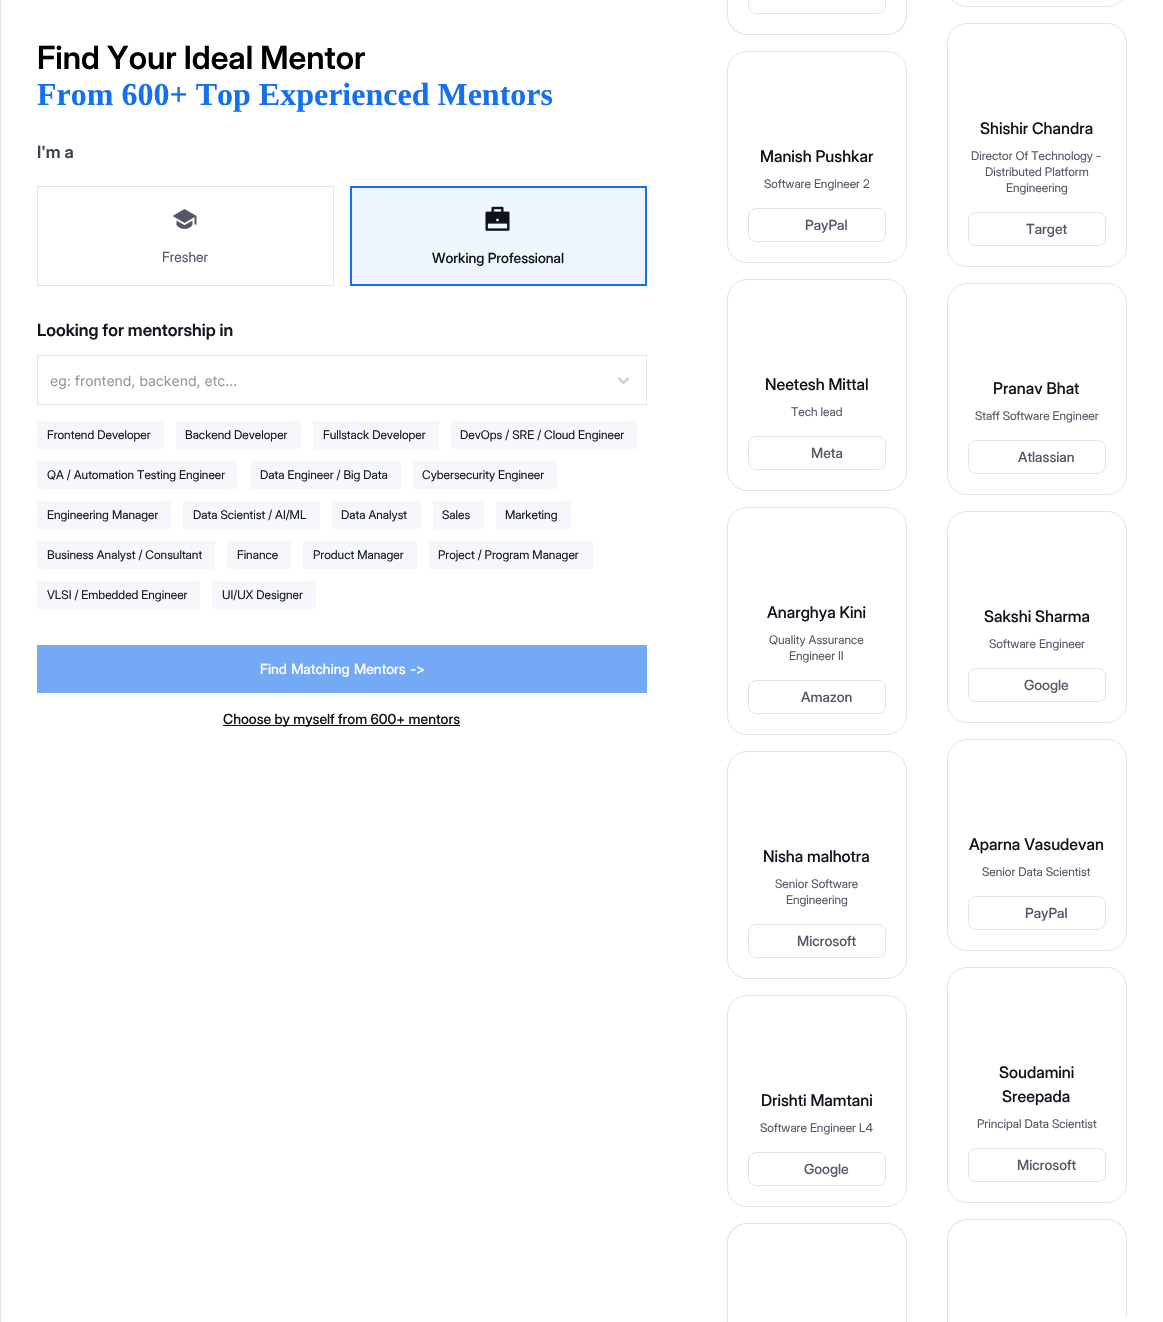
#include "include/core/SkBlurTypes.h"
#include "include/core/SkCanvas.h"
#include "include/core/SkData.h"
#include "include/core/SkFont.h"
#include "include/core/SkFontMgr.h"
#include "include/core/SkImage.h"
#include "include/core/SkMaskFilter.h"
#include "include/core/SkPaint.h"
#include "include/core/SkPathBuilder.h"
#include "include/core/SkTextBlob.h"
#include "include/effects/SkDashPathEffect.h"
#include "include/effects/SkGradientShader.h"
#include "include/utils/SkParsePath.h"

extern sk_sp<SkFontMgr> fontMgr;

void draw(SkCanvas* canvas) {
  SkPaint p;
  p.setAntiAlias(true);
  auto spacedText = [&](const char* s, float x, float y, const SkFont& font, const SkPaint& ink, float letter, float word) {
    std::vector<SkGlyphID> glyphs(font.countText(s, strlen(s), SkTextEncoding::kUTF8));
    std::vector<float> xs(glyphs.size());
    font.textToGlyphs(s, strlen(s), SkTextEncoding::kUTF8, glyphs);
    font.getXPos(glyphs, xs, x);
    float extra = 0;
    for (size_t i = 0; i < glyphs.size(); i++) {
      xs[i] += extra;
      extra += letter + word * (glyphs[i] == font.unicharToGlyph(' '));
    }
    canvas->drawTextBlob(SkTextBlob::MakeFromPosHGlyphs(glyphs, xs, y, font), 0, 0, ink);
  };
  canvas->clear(SkColorSetRGB(223, 226, 230));
  p.setColor(SK_ColorWHITE);
  canvas->drawRect(SkRect::MakeLTRB(1, 0, 1163, 1322), p);
  p.setStyle(SkPaint::kStroke_Style);
  p.setStrokeWidth(1);
  p.setColor(SkColorSetRGB(225, 228, 234));
  canvas->drawRect(SkRect::MakeLTRB(37.5f, 186.5f, 333.5f, 285.5f), p);
  canvas->drawImageRect(SkImages::DeferredFromEncodedData(SkData::MakeFromFileName("images/1.png")), SkRect::MakeLTRB(172, 209, 197, 229), SkSamplingOptions());
  p.setStyle(SkPaint::kFill_Style);
  p.setColor(SkColorSetRGB(239, 246, 255));
  canvas->drawRect(SkRect::MakeLTRB(351, 187, 646, 285), p);
  p.setStyle(SkPaint::kStroke_Style);
  p.setStrokeWidth(2);
  p.setColor(SkColorSetRGB(21, 112, 239));
  canvas->drawRect(SkRect::MakeLTRB(351, 187, 646, 285), p);
  canvas->drawImageRect(SkImages::DeferredFromEncodedData(SkData::MakeFromFileName("images/2.png")), SkRect::MakeLTRB(485, 206, 510, 231), SkSamplingOptions());
  p.setStrokeWidth(1);
  p.setColor(SkColorSetRGB(225, 228, 234));
  canvas->drawRect(SkRect::MakeLTRB(37.5f, 355.5f, 646.5f, 404.5f), p);
  canvas->drawImageRect(SkImages::DeferredFromEncodedData(SkData::MakeFromFileName("images/3.png")), SkRect::MakeLTRB(617, 377, 630, 384), SkSamplingOptions());
  p.setStyle(SkPaint::kFill_Style);
  p.setColor(SkColorSetRGB(245, 247, 250));
  canvas->drawRect(SkRect::MakeLTRB(37, 421, 164, 449), p);
  canvas->drawRect(SkRect::MakeLTRB(176, 421, 301, 449), p);
  canvas->drawRect(SkRect::MakeLTRB(313, 421, 439, 449), p);
  canvas->drawRect(SkRect::MakeLTRB(451, 421, 638, 449), p);
  canvas->drawRect(SkRect::MakeLTRB(37, 461, 238, 489), p);
  canvas->drawRect(SkRect::MakeLTRB(250, 461, 401, 489), p);
  canvas->drawRect(SkRect::MakeLTRB(413, 461, 558, 489), p);
  canvas->drawRect(SkRect::MakeLTRB(37, 501, 171, 529), p);
  canvas->drawRect(SkRect::MakeLTRB(183, 501, 320, 529), p);
  canvas->drawRect(SkRect::MakeLTRB(332, 501, 421, 529), p);
  canvas->drawRect(SkRect::MakeLTRB(433, 501, 484, 529), p);
  canvas->drawRect(SkRect::MakeLTRB(496, 501, 571, 529), p);
  canvas->drawRect(SkRect::MakeLTRB(37, 541, 215, 569), p);
  canvas->drawRect(SkRect::MakeLTRB(227, 541, 291, 569), p);
  canvas->drawRect(SkRect::MakeLTRB(303, 541, 417, 569), p);
  canvas->drawRect(SkRect::MakeLTRB(429, 541, 593, 569), p);
  canvas->drawRect(SkRect::MakeLTRB(37, 581, 200, 609), p);
  canvas->drawRect(SkRect::MakeLTRB(212, 581, 316, 609), p);
  p.setColor(SkColorSetRGB(115, 169, 245));
  canvas->drawRect(SkRect::MakeLTRB(37, 645, 647, 693), p);
  p.setColor(SkColorSetRGB(14, 18, 27));
  canvas->drawRect(SkRect::MakeLTRB(223, 725, 460, 726), p);
  p.setColor(SkColorSetRGB(225, 228, 234));
  canvas->drawPath(SkPathBuilder().moveTo(727, 0).lineTo(727, 15).cubicTo(727, 26, 736, 35, 747, 35).lineTo(887, 35).cubicTo(898, 35, 907, 26, 907, 15).lineTo(907, 0).lineTo(906, 0).lineTo(906, 15).cubicTo(906, 25, 897, 34, 887, 34).lineTo(747, 34).cubicTo(737, 34, 728, 25, 728, 15).lineTo(728, 0).close().detach(), p);
  canvas->drawPath(SkPathBuilder().moveTo(886, 0).lineTo(886, 6).cubicTo(886, 10, 882, 14, 878, 14).lineTo(756, 14).cubicTo(752, 14, 748, 10, 748, 6).lineTo(748, 0).lineTo(749, 0).lineTo(749, 6).cubicTo(749, 10, 752, 13, 756, 13).lineTo(878, 13).cubicTo(882, 13, 885, 10, 885, 6).lineTo(885, 0).close().detach(), p);
  p.setStyle(SkPaint::kStroke_Style);
  canvas->drawRoundRect(SkRect::MakeLTRB(727.5f, 51.5f, 906.5f, 262.5f), 19.5f, 19.5f, p);
  canvas->drawRoundRect(SkRect::MakeLTRB(748.5f, 208.5f, 885.5f, 241.5f), 7.5f, 7.5f, p);
  canvas->drawRoundRect(SkRect::MakeLTRB(727.5f, 279.5f, 906.5f, 490.5f), 19.5f, 19.5f, p);
  canvas->drawRoundRect(SkRect::MakeLTRB(748.5f, 436.5f, 885.5f, 469.5f), 7.5f, 7.5f, p);
  canvas->drawRoundRect(SkRect::MakeLTRB(727.5f, 507.5f, 906.5f, 734.5f), 19.5f, 19.5f, p);
  canvas->drawRoundRect(SkRect::MakeLTRB(748.5f, 680.5f, 885.5f, 713.5f), 7.5f, 7.5f, p);
  canvas->drawRoundRect(SkRect::MakeLTRB(727.5f, 751.5f, 906.5f, 978.5f), 19.5f, 19.5f, p);
  canvas->drawRoundRect(SkRect::MakeLTRB(748.5f, 924.5f, 885.5f, 957.5f), 7.5f, 7.5f, p);
  canvas->drawRoundRect(SkRect::MakeLTRB(727.5f, 995.5f, 906.5f, 1206.5f), 19.5f, 19.5f, p);
  canvas->drawRoundRect(SkRect::MakeLTRB(748.5f, 1152.5f, 885.5f, 1185.5f), 7.5f, 7.5f, p);
  p.setStyle(SkPaint::kFill_Style);
  canvas->drawPath(SkPathBuilder().moveTo(747, 1223).cubicTo(736, 1223, 727, 1232, 727, 1243).lineTo(727, 1322).lineTo(728, 1322).lineTo(728, 1243).cubicTo(728, 1233, 737, 1224, 747, 1224).lineTo(887, 1224).cubicTo(897, 1224, 906, 1233, 906, 1243).lineTo(906, 1322).lineTo(907, 1322).lineTo(907, 1243).cubicTo(907, 1232, 898, 1223, 887, 1223).close().detach(), p);
  canvas->drawPath(SkPathBuilder().moveTo(1122, 0).cubicTo(1118, 4, 1113, 7, 1107, 7).lineTo(967, 7).cubicTo(961, 7, 955, 4, 952, 0).lineTo(953, 0).cubicTo(957, 4, 962, 6, 967, 6).lineTo(1107, 6).cubicTo(1112, 6, 1117, 4, 1121, 0).close().detach(), p);
  p.setStyle(SkPaint::kStroke_Style);
  canvas->drawRoundRect(SkRect::MakeLTRB(947.5f, 23.5f, 1126.5f, 266.5f), 19.5f, 19.5f, p);
  canvas->drawRoundRect(SkRect::MakeLTRB(968.5f, 212.5f, 1105.5f, 245.5f), 7.5f, 7.5f, p);
  canvas->drawRoundRect(SkRect::MakeLTRB(947.5f, 283.5f, 1126.5f, 494.5f), 19.5f, 19.5f, p);
  canvas->drawRoundRect(SkRect::MakeLTRB(968.5f, 440.5f, 1105.5f, 473.5f), 7.5f, 7.5f, p);
  canvas->drawRoundRect(SkRect::MakeLTRB(947.5f, 511.5f, 1126.5f, 722.5f), 19.5f, 19.5f, p);
  canvas->drawRoundRect(SkRect::MakeLTRB(968.5f, 668.5f, 1105.5f, 701.5f), 7.5f, 7.5f, p);
  canvas->drawRoundRect(SkRect::MakeLTRB(947.5f, 739.5f, 1126.5f, 950.5f), 19.5f, 19.5f, p);
  canvas->drawRoundRect(SkRect::MakeLTRB(968.5f, 896.5f, 1105.5f, 929.5f), 7.5f, 7.5f, p);
  canvas->drawRoundRect(SkRect::MakeLTRB(947.5f, 967.5f, 1126.5f, 1202.5f), 19.5f, 19.5f, p);
  canvas->drawRoundRect(SkRect::MakeLTRB(968.5f, 1148.5f, 1105.5f, 1181.5f), 7.5f, 7.5f, p);
  p.setStyle(SkPaint::kFill_Style);
  canvas->drawPath(SkPathBuilder().moveTo(967, 1219).cubicTo(956, 1219, 947, 1228, 947, 1239).lineTo(947, 1322).lineTo(948, 1322).lineTo(948, 1239).cubicTo(948, 1229, 957, 1220, 967, 1220).lineTo(1107, 1220).cubicTo(1117, 1220, 1126, 1229, 1126, 1239).lineTo(1126, 1318).cubicTo(1127, 1317, 1127, 1315, 1127, 1314).lineTo(1127, 1239).cubicTo(1127, 1228, 1118, 1219, 1107, 1219).close().detach(), p);
  SkFont font1(fontMgr->matchFamilyStyle("Inter Display", SkFontStyle(600, SkFontStyle::kNormal_Width, SkFontStyle::kUpright_Slant)), 32);
  font1.setSubpixel(true);
  p.setColor(SK_ColorBLACK);
  canvas->drawString("Find Your Ideal Mentor", 37, 69, font1, p);
  SkFont font2(fontMgr->matchFamilyStyle("Liberation Serif", SkFontStyle::Bold()), 32);
  font2.setSubpixel(true);
  p.setColor(SkColorSetRGB(21, 112, 239));
  canvas->drawString("From 600+ Top Experienced Mentors", 37, 105, font2, p);
  SkFont font3(fontMgr->matchFamilyStyle("Inter Display", SkFontStyle(600, SkFontStyle::kNormal_Width, SkFontStyle::kUpright_Slant)), 17);
  font3.setSubpixel(true);
  p.setColor(SkColorSetRGB(55, 65, 81));
  canvas->drawString("I'm a", 37, 158, font3, p);
  SkFont font4(fontMgr->matchFamilyStyle("Inter Display", SkFontStyle::Normal()), 14);
  font4.setSubpixel(true);
  p.setColor(SkColorSetRGB(82, 88, 102));
  canvas->drawString("Fresher", 162, 262, font4, p);
  SkFont font5(fontMgr->matchFamilyStyle("Inter Display", SkFontStyle(500, SkFontStyle::kNormal_Width, SkFontStyle::kUpright_Slant)), 14);
  font5.setSubpixel(true);
  p.setColor(SkColorSetRGB(14, 18, 27));
  canvas->drawString("Working Professional", 432, 263, font5, p);
  p.setColor(SkColorSetRGB(20, 23, 31));
  canvas->drawString("Looking for mentorship in", 37, 336, font3, p);
  SkFont font6(fontMgr->matchFamilyStyle("Inter", SkFontStyle::Normal()), 14);
  font6.setSubpixel(true);
  p.setColor(SkColorSetRGB(153, 153, 153));
  canvas->drawString("eg: frontend, backend, etc...", 50, 386, font6, p);
  SkFont font7(fontMgr->matchFamilyStyle("Inter Display", SkFontStyle::Normal()), 12);
  font7.setSubpixel(true);
  p.setColor(SkColorSetRGB(20, 23, 31));
  canvas->drawString("Frontend Developer", 47, 439, font7, p);
  canvas->drawString("Backend Developer", 185, 439, font7, p);
  canvas->drawString("Fullstack Developer", 323, 439, font7, p);
  canvas->drawString("DevOps / SRE / Cloud Engineer", 460, 439, font7, p);
  canvas->drawString("QA / Automation Testing Engineer", 47, 479, font7, p);
  canvas->drawString("Data Engineer / Big Data", 260, 479, font7, p);
  canvas->drawString("Cybersecurity Engineer", 422, 479, font7, p);
  canvas->drawString("Engineering Manager", 47, 519, font7, p);
  canvas->drawString("Data Scientist / AI/ML", 193, 519, font7, p);
  canvas->drawString("Data Analyst", 341, 519, font7, p);
  canvas->drawString("Sales", 442, 519, font7, p);
  canvas->drawString("Marketing", 505, 519, font7, p);
  canvas->drawString("Business Analyst / Consultant", 47, 559, font7, p);
  canvas->drawString("Finance", 237, 559, font7, p);
  canvas->drawString("Product Manager", 313, 559, font7, p);
  canvas->drawString("Project / Program Manager", 438, 559, font7, p);
  canvas->drawString("VLSI / Embedded Engineer", 47, 599, font7, p);
  canvas->drawString("UI/UX Designer", 222, 599, font7, p);
  p.setColor(SK_ColorWHITE);
  spacedText("Find Matching Mentors ->", 260, 674, font5, p, 0, 1);
  p.setColor(SkColorSetRGB(14, 18, 27));
  canvas->drawString("Choose by myself from 600+ mentors", 223, 724, font5, p);
  SkFont font8(fontMgr->matchFamilyStyle("Inter Display", SkFontStyle(500, SkFontStyle::kNormal_Width, SkFontStyle::kUpright_Slant)), 16);
  font8.setSubpixel(true);
  canvas->drawString("Manish Pushkar", 760, 162, font8, p);
  p.setColor(SkColorSetRGB(82, 88, 102));
  canvas->drawString("Software Engineer 2", 764, 188, font7, p);
  canvas->drawString("PayPal", 805, 230, font5, p);
  p.setColor(SkColorSetRGB(14, 18, 27));
  canvas->drawString("Neetesh Mittal", 765, 390, font8, p);
  p.setColor(SkColorSetRGB(82, 88, 102));
  canvas->drawString("Tech lead", 791, 416, font7, p);
  canvas->drawString("Meta", 811, 458, font5, p);
  p.setColor(SkColorSetRGB(14, 18, 27));
  canvas->drawString("Anarghya Kini", 767, 618, font8, p);
  p.setColor(SkColorSetRGB(82, 88, 102));
  canvas->drawString("Quality Assurance", 769, 644, font7, p);
  canvas->drawString("Engineer II", 789, 660, font7, p);
  canvas->drawString("Amazon", 801, 702, font5, p);
  p.setColor(SkColorSetRGB(14, 18, 27));
  canvas->drawString("Nisha malhotra", 763, 862, font8, p);
  p.setColor(SkColorSetRGB(82, 88, 102));
  canvas->drawString("Senior Software", 775, 888, font7, p);
  canvas->drawString("Engineering", 786, 904, font7, p);
  canvas->drawString("Microsoft", 797, 946, font5, p);
  p.setColor(SkColorSetRGB(14, 18, 27));
  canvas->drawString("Drishti Mamtani", 761, 1106, font8, p);
  p.setColor(SkColorSetRGB(82, 88, 102));
  canvas->drawString("Software Engineer L4", 760, 1132, font7, p);
  canvas->drawString("Google", 804, 1174, font5, p);
  p.setColor(SkColorSetRGB(14, 18, 27));
  canvas->drawString("Shishir Chandra", 980, 134, font8, p);
  p.setColor(SkColorSetRGB(82, 88, 102));
  canvas->drawString("Director Of Technology -", 971, 160, font7, p);
  canvas->drawString("Distributed Platform", 985, 176, font7, p);
  canvas->drawString("Engineering", 1006, 192, font7, p);
  canvas->drawString("Target", 1026, 234, font5, p);
  p.setColor(SkColorSetRGB(14, 18, 27));
  canvas->drawString("Pranav Bhat", 993, 394, font8, p);
  p.setColor(SkColorSetRGB(82, 88, 102));
  canvas->drawString("Staff Software Engineer", 975, 420, font7, p);
  canvas->drawString("Atlassian", 1018, 462, font5, p);
  p.setColor(SkColorSetRGB(14, 18, 27));
  canvas->drawString("Sakshi Sharma", 984, 622, font8, p);
  p.setColor(SkColorSetRGB(82, 88, 102));
  canvas->drawString("Software Engineer", 989, 648, font7, p);
  canvas->drawString("Google", 1024, 690, font5, p);
  p.setColor(SkColorSetRGB(14, 18, 27));
  canvas->drawString("Aparna Vasudevan", 969, 850, font8, p);
  p.setColor(SkColorSetRGB(82, 88, 102));
  canvas->drawString("Senior Data Scientist", 982, 876, font7, p);
  canvas->drawString("PayPal", 1025, 918, font5, p);
  p.setColor(SkColorSetRGB(14, 18, 27));
  canvas->drawString("Soudamini", 999, 1078, font8, p);
  canvas->drawString("Sreepada", 1002, 1102, font8, p);
  p.setColor(SkColorSetRGB(82, 88, 102));
  canvas->drawString("Principal Data Scientist", 977, 1128, font7, p);
  canvas->drawString("Microsoft", 1017, 1170, font5, p);
}
